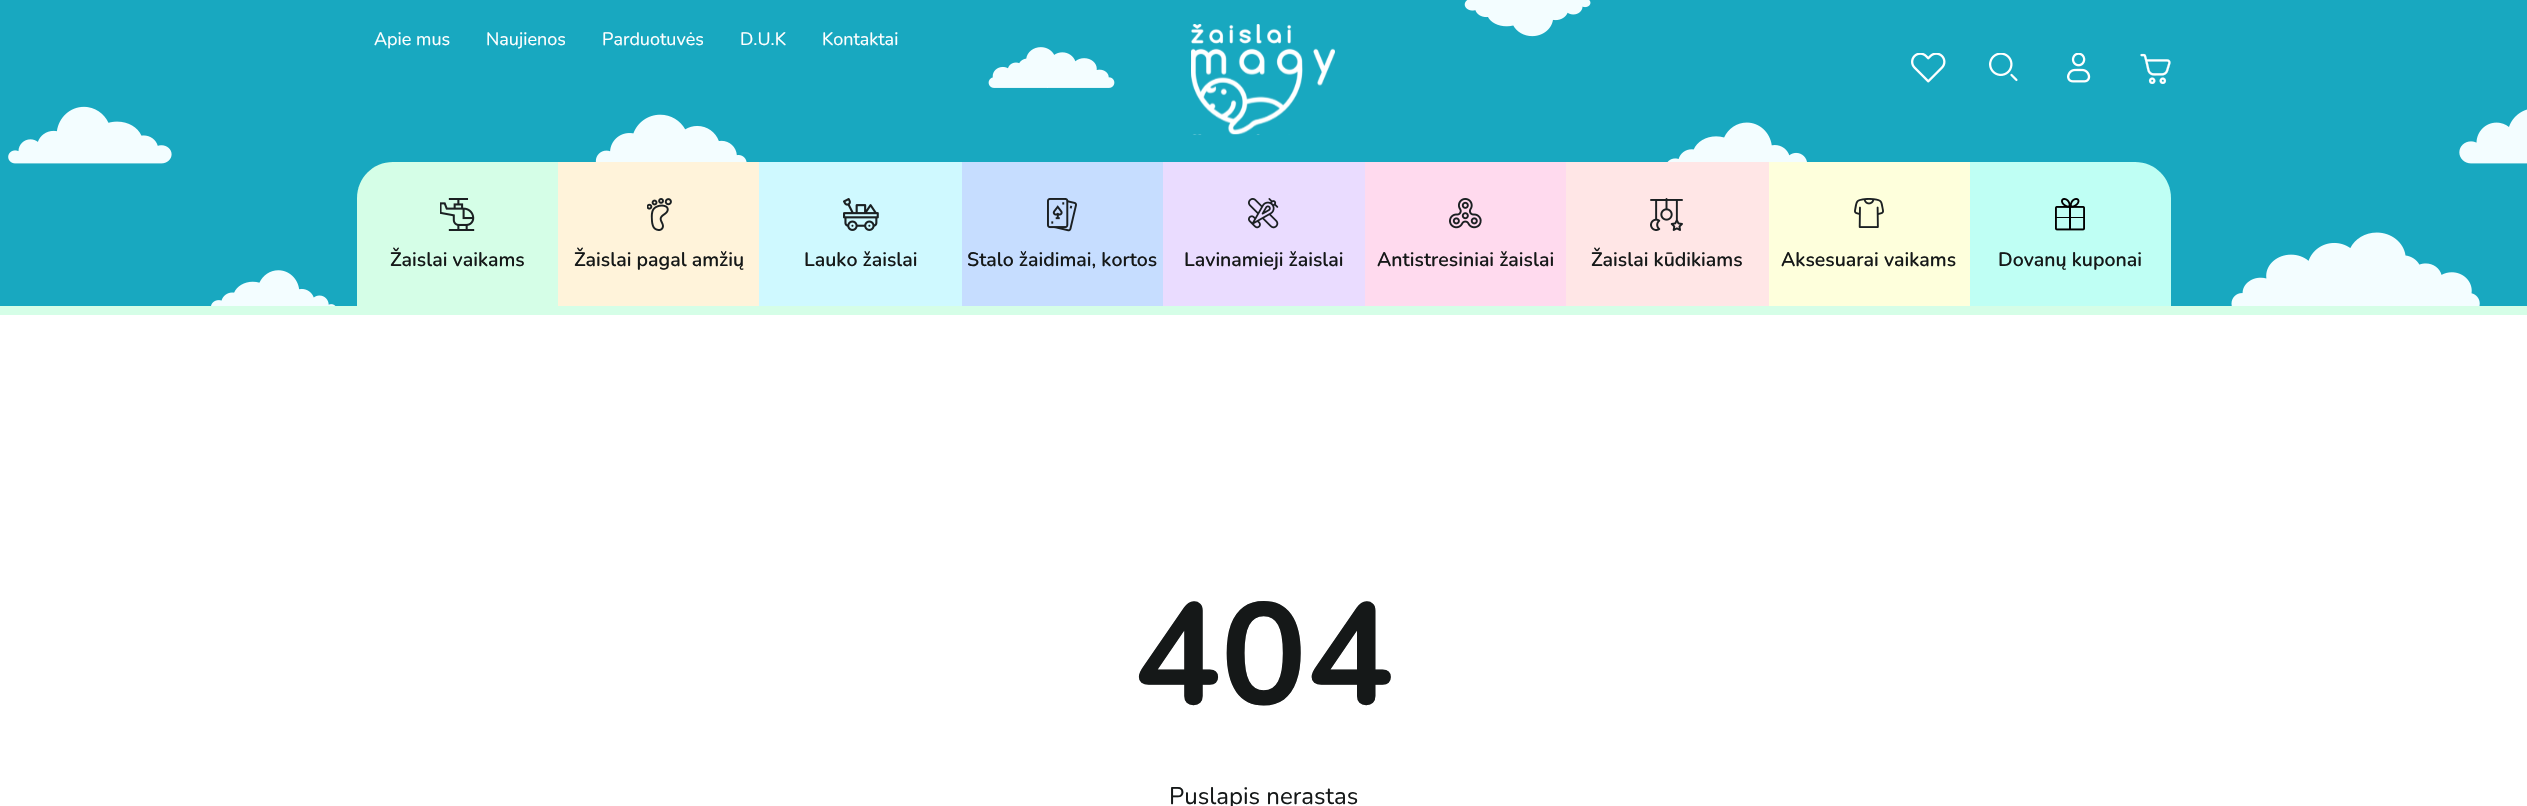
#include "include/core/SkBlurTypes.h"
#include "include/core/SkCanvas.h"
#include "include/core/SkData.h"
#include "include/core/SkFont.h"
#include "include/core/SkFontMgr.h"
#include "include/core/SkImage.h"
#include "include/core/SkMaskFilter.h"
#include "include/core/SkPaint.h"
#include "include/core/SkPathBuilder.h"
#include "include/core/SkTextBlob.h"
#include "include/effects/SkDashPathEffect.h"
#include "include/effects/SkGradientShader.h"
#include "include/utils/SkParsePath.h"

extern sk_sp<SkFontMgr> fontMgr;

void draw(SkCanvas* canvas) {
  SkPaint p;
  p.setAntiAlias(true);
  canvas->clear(SK_ColorWHITE);
  p.setColor(SkColorSetRGB(24, 168, 192));
  canvas->drawRect(SkRect::MakeLTRB(0, 0, 2527, 306), p);
  canvas->drawImageRect(SkImages::DeferredFromEncodedData(SkData::MakeFromFileName("images/1.png")), SkRect::MakeLTRB(8, 0, 2527, 306), SkSamplingOptions());
  canvas->drawImageRect(SkImages::DeferredFromEncodedData(SkData::MakeFromFileName("images/2.png")), SkRect::MakeLTRB(1191, 24, 1335, 135), SkSamplingOptions());
  canvas->drawImageRect(SkImages::DeferredFromEncodedData(SkData::MakeFromFileName("images/3.png")), SkRect::MakeLTRB(1911, 53, 1946, 83), SkSamplingOptions());
  canvas->drawImageRect(SkImages::DeferredFromEncodedData(SkData::MakeFromFileName("images/4.png")), SkRect::MakeLTRB(1989, 53, 2018, 82), SkSamplingOptions());
  canvas->drawImageRect(SkImages::DeferredFromEncodedData(SkData::MakeFromFileName("images/5.png")), SkRect::MakeLTRB(2067, 53, 2091, 83), SkSamplingOptions());
  canvas->drawImageRect(SkImages::DeferredFromEncodedData(SkData::MakeFromFileName("images/6.png")), SkRect::MakeLTRB(2140, 53, 2171, 84), SkSamplingOptions());
  canvas->drawRect(SkRect::MakeLTRB(595, 162, 1817, 176), p);
  p.setColor(SkColorSetRGB(213, 254, 231));
  canvas->drawPath(SkPathBuilder().moveTo(393, 162).lineTo(558, 162).lineTo(558, 306).lineTo(357, 306).lineTo(357, 198).cubicTo(357, 178, 373, 162, 393, 162).close().detach(), p);
  canvas->drawImageRect(SkImages::DeferredFromEncodedData(SkData::MakeFromFileName("images/7.png")), SkRect::MakeLTRB(440, 198, 475, 231), SkSamplingOptions());
  p.setColor(SkColorSetRGB(255, 243, 218));
  canvas->drawRect(SkRect::MakeLTRB(558, 162, 759, 306), p);
  canvas->drawImageRect(SkImages::DeferredFromEncodedData(SkData::MakeFromFileName("images/8.png")), SkRect::MakeLTRB(647, 198, 672, 231), SkSamplingOptions());
  p.setColor(SkColorSetRGB(207, 249, 255));
  canvas->drawRect(SkRect::MakeLTRB(759, 162, 962, 306), p);
  canvas->drawImageRect(SkImages::DeferredFromEncodedData(SkData::MakeFromFileName("images/9.png")), SkRect::MakeLTRB(843, 198, 879, 231), SkSamplingOptions());
  p.setColor(SkColorSetRGB(198, 221, 255));
  canvas->drawRect(SkRect::MakeLTRB(962, 162, 1163, 306), p);
  canvas->drawImageRect(SkImages::DeferredFromEncodedData(SkData::MakeFromFileName("images/10.png")), SkRect::MakeLTRB(1047, 198, 1077, 232), SkSamplingOptions());
  p.setColor(SkColorSetRGB(234, 220, 255));
  canvas->drawRect(SkRect::MakeLTRB(1163, 162, 1365, 306), p);
  canvas->drawImageRect(SkImages::DeferredFromEncodedData(SkData::MakeFromFileName("images/11.png")), SkRect::MakeLTRB(1248, 198, 1279, 229), SkSamplingOptions());
  p.setColor(SkColorSetRGB(255, 218, 238));
  canvas->drawRect(SkRect::MakeLTRB(1365, 162, 1566, 306), p);
  canvas->drawImageRect(SkImages::DeferredFromEncodedData(SkData::MakeFromFileName("images/12.png")), SkRect::MakeLTRB(1449, 198, 1482, 229), SkSamplingOptions());
  p.setColor(SkColorSetRGB(255, 230, 230));
  canvas->drawRect(SkRect::MakeLTRB(1566, 162, 1769, 306), p);
  canvas->drawImageRect(SkImages::DeferredFromEncodedData(SkData::MakeFromFileName("images/13.png")), SkRect::MakeLTRB(1650, 198, 1683, 231), SkSamplingOptions());
  p.setColor(SkColorSetRGB(254, 255, 220));
  canvas->drawRect(SkRect::MakeLTRB(1769, 162, 1970, 306), p);
  canvas->drawImageRect(SkImages::DeferredFromEncodedData(SkData::MakeFromFileName("images/14.png")), SkRect::MakeLTRB(1854, 198, 1884, 228), SkSamplingOptions());
  p.setColor(SkColorSetRGB(191, 255, 244));
  canvas->drawPath(SkPathBuilder().moveTo(1970, 162).lineTo(2135, 162).cubicTo(2155, 162, 2171, 178, 2171, 198).lineTo(2171, 306).lineTo(1970, 306).close().detach(), p);
  canvas->drawImageRect(SkImages::DeferredFromEncodedData(SkData::MakeFromFileName("images/15.png")), SkRect::MakeLTRB(2055, 198, 2085, 231), SkSamplingOptions());
  p.setColor(SkColorSetRGB(213, 254, 231));
  canvas->drawRect(SkRect::MakeLTRB(0, 306, 2527, 315), p);
  SkFont font1(fontMgr->matchFamilyStyle("Nunito", SkFontStyle::Normal()), 18);
  font1.setSubpixel(true);
  p.setColor(SK_ColorWHITE);
  canvas->drawString("Apie mus", 374, 45, font1, p);
  canvas->drawString("Naujienos", 486, 45, font1, p);
  canvas->drawString("Parduotuvės", 602, 45, font1, p);
  canvas->drawString("D.U.K", 740, 45, font1, p);
  canvas->drawString("Kontaktai", 822, 45, font1, p);
  SkFont font2(fontMgr->matchFamilyStyle("Nunito", SkFontStyle(600, SkFontStyle::kNormal_Width, SkFontStyle::kUpright_Slant)), 19.5f);
  font2.setSubpixel(true);
  p.setColor(SkColorSetRGB(21, 24, 24));
  canvas->drawString("Žaislai vaikams", 390, 266, font2, p);
  canvas->drawString("Žaislai pagal amžių", 574, 266, font2, p);
  canvas->drawString("Lauko žaislai", 804, 266, font2, p);
  canvas->drawString("Stalo žaidimai, kortos", 967, 266, font2, p);
  canvas->drawString("Lavinamieji žaislai", 1184, 266, font2, p);
  canvas->drawString("Antistresiniai žaislai", 1377, 266, font2, p);
  canvas->drawString("Žaislai kūdikiams", 1591, 266, font2, p);
  canvas->drawString("Aksesuarai vaikams", 1781, 266, font2, p);
  canvas->drawString("Dovanų kuponai", 1998, 266, font2, p);
  SkFont font3(fontMgr->matchFamilyStyle("Nunito", SkFontStyle::Bold()), 144);
  font3.setSubpixel(true);
  canvas->drawString("404", 1134, 704, font3, p);
  SkFont font4(fontMgr->matchFamilyStyle("Nunito", SkFontStyle::Normal()), 24);
  font4.setSubpixel(true);
  canvas->drawString("Puslapis nerastas", 1169, 804, font4, p);
}
